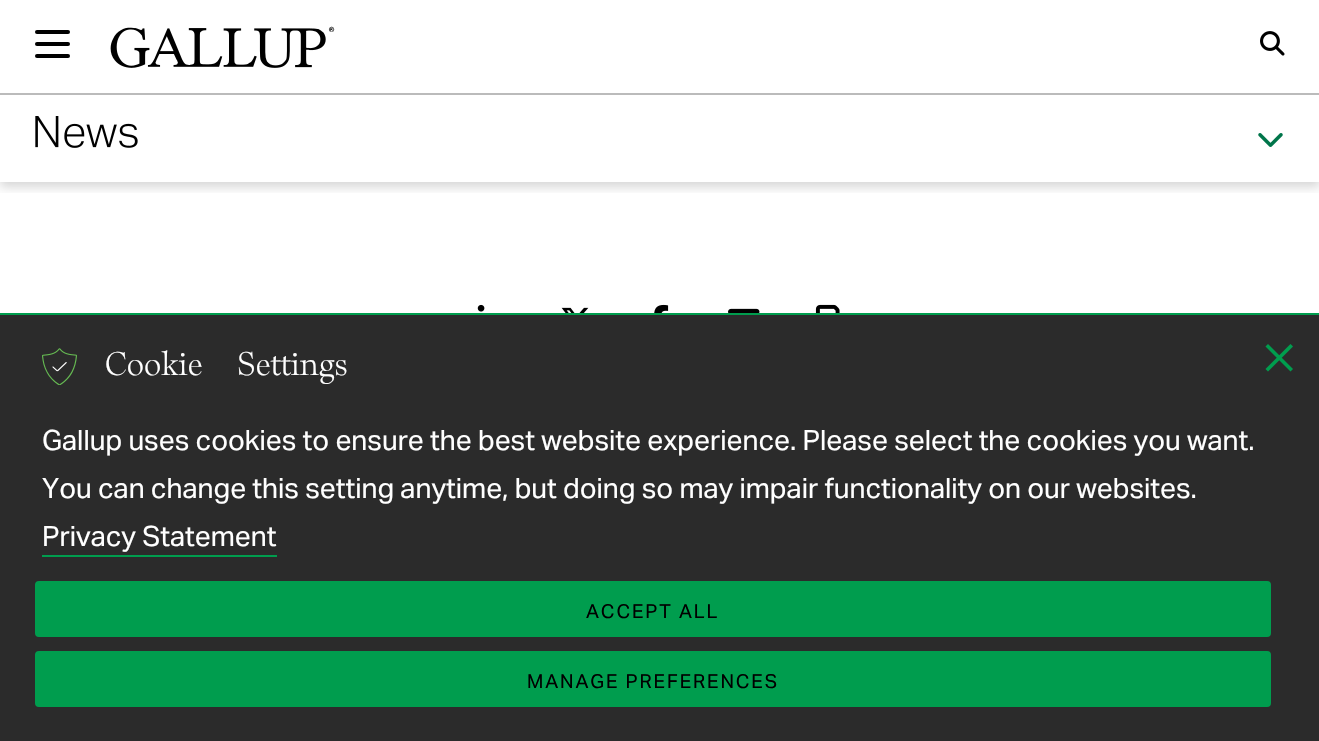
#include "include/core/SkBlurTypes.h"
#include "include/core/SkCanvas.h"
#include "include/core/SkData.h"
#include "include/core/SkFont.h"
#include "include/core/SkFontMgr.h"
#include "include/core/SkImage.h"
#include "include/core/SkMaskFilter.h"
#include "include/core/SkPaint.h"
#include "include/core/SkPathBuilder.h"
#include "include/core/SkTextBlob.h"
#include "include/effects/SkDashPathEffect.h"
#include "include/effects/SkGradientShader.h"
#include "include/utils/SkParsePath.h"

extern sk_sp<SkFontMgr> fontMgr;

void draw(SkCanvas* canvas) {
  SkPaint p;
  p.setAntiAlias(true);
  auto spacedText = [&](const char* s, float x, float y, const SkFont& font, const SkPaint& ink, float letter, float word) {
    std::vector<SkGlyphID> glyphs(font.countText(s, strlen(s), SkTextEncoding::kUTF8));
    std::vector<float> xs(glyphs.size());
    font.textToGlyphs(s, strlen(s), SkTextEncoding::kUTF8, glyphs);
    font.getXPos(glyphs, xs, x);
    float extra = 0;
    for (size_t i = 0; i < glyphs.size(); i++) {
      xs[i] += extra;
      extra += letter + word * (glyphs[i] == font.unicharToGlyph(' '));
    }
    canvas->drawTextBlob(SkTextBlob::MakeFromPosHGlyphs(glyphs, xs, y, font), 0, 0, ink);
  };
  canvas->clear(SK_ColorWHITE);
  canvas->save();
  canvas->clipRect(SkRect::MakeLTRB(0, 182, 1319, 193));
  p.setColor(SkColorSetARGB(41, 0, 0, 0));
  p.setMaskFilter(SkMaskFilter::MakeBlur(kNormal_SkBlurStyle, 5));
  canvas->drawRect(SkRect::MakeLTRB(0, 98, 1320, 187), p);
  p.setMaskFilter(nullptr);
  canvas->restore();
  p.setColor(SK_ColorWHITE);
  canvas->drawRect(SkRect::MakeLTRB(1, 90, 1319, 93), p);
  p.setColor(SK_ColorBLACK);
  canvas->drawRoundRect(SkRect::MakeLTRB(35, 30, 70, 34), 2, 2, p);
  canvas->drawRoundRect(SkRect::MakeLTRB(35, 42, 70, 46), 2, 2, p);
  canvas->drawRoundRect(SkRect::MakeLTRB(35, 54, 70, 58), 2, 2, p);
  canvas->drawImageRect(SkImages::DeferredFromEncodedData(SkData::MakeFromFileName("images/1.png")), SkRect::MakeLTRB(110, 26, 335, 68), SkSamplingOptions());
  canvas->drawImageRect(SkImages::DeferredFromEncodedData(SkData::MakeFromFileName("images/2.png")), SkRect::MakeLTRB(1260, 31, 1285, 56), SkSamplingOptions());
  p.setColor(SkColorSetRGB(187, 187, 187));
  canvas->drawRect(SkRect::MakeLTRB(0, 93, 1319, 95), p);
  canvas->drawImageRect(SkImages::DeferredFromEncodedData(SkData::MakeFromFileName("images/3.png")), SkRect::MakeLTRB(35, 116, 138, 148), SkSamplingOptions());
  canvas->drawImageRect(SkImages::DeferredFromEncodedData(SkData::MakeFromFileName("images/4.png")), SkRect::MakeLTRB(1258, 133, 1283, 147), SkSamplingOptions());
  canvas->drawImageRect(SkImages::DeferredFromEncodedData(SkData::MakeFromFileName("images/5.png")), SkRect::MakeLTRB(477, 304, 485, 312), SkSamplingOptions());
  canvas->drawImageRect(SkImages::DeferredFromEncodedData(SkData::MakeFromFileName("images/6.png")), SkRect::MakeLTRB(561, 307, 589, 313), SkSamplingOptions());
  canvas->drawImageRect(SkImages::DeferredFromEncodedData(SkData::MakeFromFileName("images/7.png")), SkRect::MakeLTRB(654, 304, 669, 313), SkSamplingOptions());
  canvas->drawImageRect(SkImages::DeferredFromEncodedData(SkData::MakeFromFileName("images/8.png")), SkRect::MakeLTRB(728, 308, 760, 313), SkSamplingOptions());
  canvas->drawImageRect(SkImages::DeferredFromEncodedData(SkData::MakeFromFileName("images/9.png")), SkRect::MakeLTRB(815, 304, 840, 313), SkSamplingOptions());
  p.setColor(SkColorSetRGB(43, 43, 43));
  canvas->drawRect(SkRect::MakeLTRB(0, 315, 1319, 741), p);
  p.setColor(SkColorSetRGB(0, 157, 78));
  canvas->drawRect(SkRect::MakeLTRB(0, 313, 1319, 315), p);
  canvas->drawImageRect(SkImages::DeferredFromEncodedData(SkData::MakeFromFileName("images/10.png")), SkRect::MakeLTRB(42, 348, 77, 385), SkSamplingOptions());
  canvas->drawPath(SkPathBuilder().moveTo(1290.5f, 344).lineTo(1293, 346.5f).lineTo(1268, 371.5f).lineTo(1265.5f, 369).close().detach(), p);
  canvas->drawPath(SkPathBuilder().moveTo(1265.5f, 346.5f).lineTo(1268, 344).lineTo(1293, 369).lineTo(1290.5f, 371.5f).close().detach(), p);
  canvas->drawRect(SkRect::MakeLTRB(42, 555, 277, 557), p);
  canvas->drawRoundRect(SkRect::MakeLTRB(36, 582, 1270, 636), 3, 3, p);
  p.setStyle(SkPaint::kStroke_Style);
  p.setStrokeWidth(2);
  canvas->drawRoundRect(SkRect::MakeLTRB(36, 582, 1270, 636), 3, 3, p);
  p.setStyle(SkPaint::kFill_Style);
  canvas->drawRoundRect(SkRect::MakeLTRB(36, 652, 1270, 706), 3, 3, p);
  p.setStyle(SkPaint::kStroke_Style);
  canvas->drawRoundRect(SkRect::MakeLTRB(36, 652, 1270, 706), 3, 3, p);
  SkFont font1(fontMgr->matchFamilyStyle("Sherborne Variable", SkFontStyle::Normal()), 35);
  font1.setSubpixel(true);
  p.setStyle(SkPaint::kFill_Style);
  p.setColor(SK_ColorWHITE);
  spacedText("Cookie Settings", 105, 375, font1, p, 0, 24);
  SkFont font2(fontMgr->matchFamilyStyle("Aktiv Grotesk", SkFontStyle::Normal()), 28);
  font2.setSubpixel(true);
  canvas->drawString("Gallup uses cookies to ensure the best website experience. Please select the cookies you want.", 42, 450, font2, p);
  canvas->drawString("You can change this setting anytime, but doing so may impair functionality on our websites.", 42, 498, font2, p);
  canvas->drawString("Privacy Statement", 42, 546, font2, p);
  SkFont font3(fontMgr->matchFamilyStyle("Aktiv Grotesk", SkFontStyle::Normal()), 19.25f);
  font3.setSubpixel(true);
  p.setColor(SK_ColorBLACK);
  spacedText("ACCEPT ALL", 586, 618, font3, p, 1.9f, 0);
  spacedText("MANAGE PREFERENCES", 527, 688, font3, p, 1.9f, 0);
}
